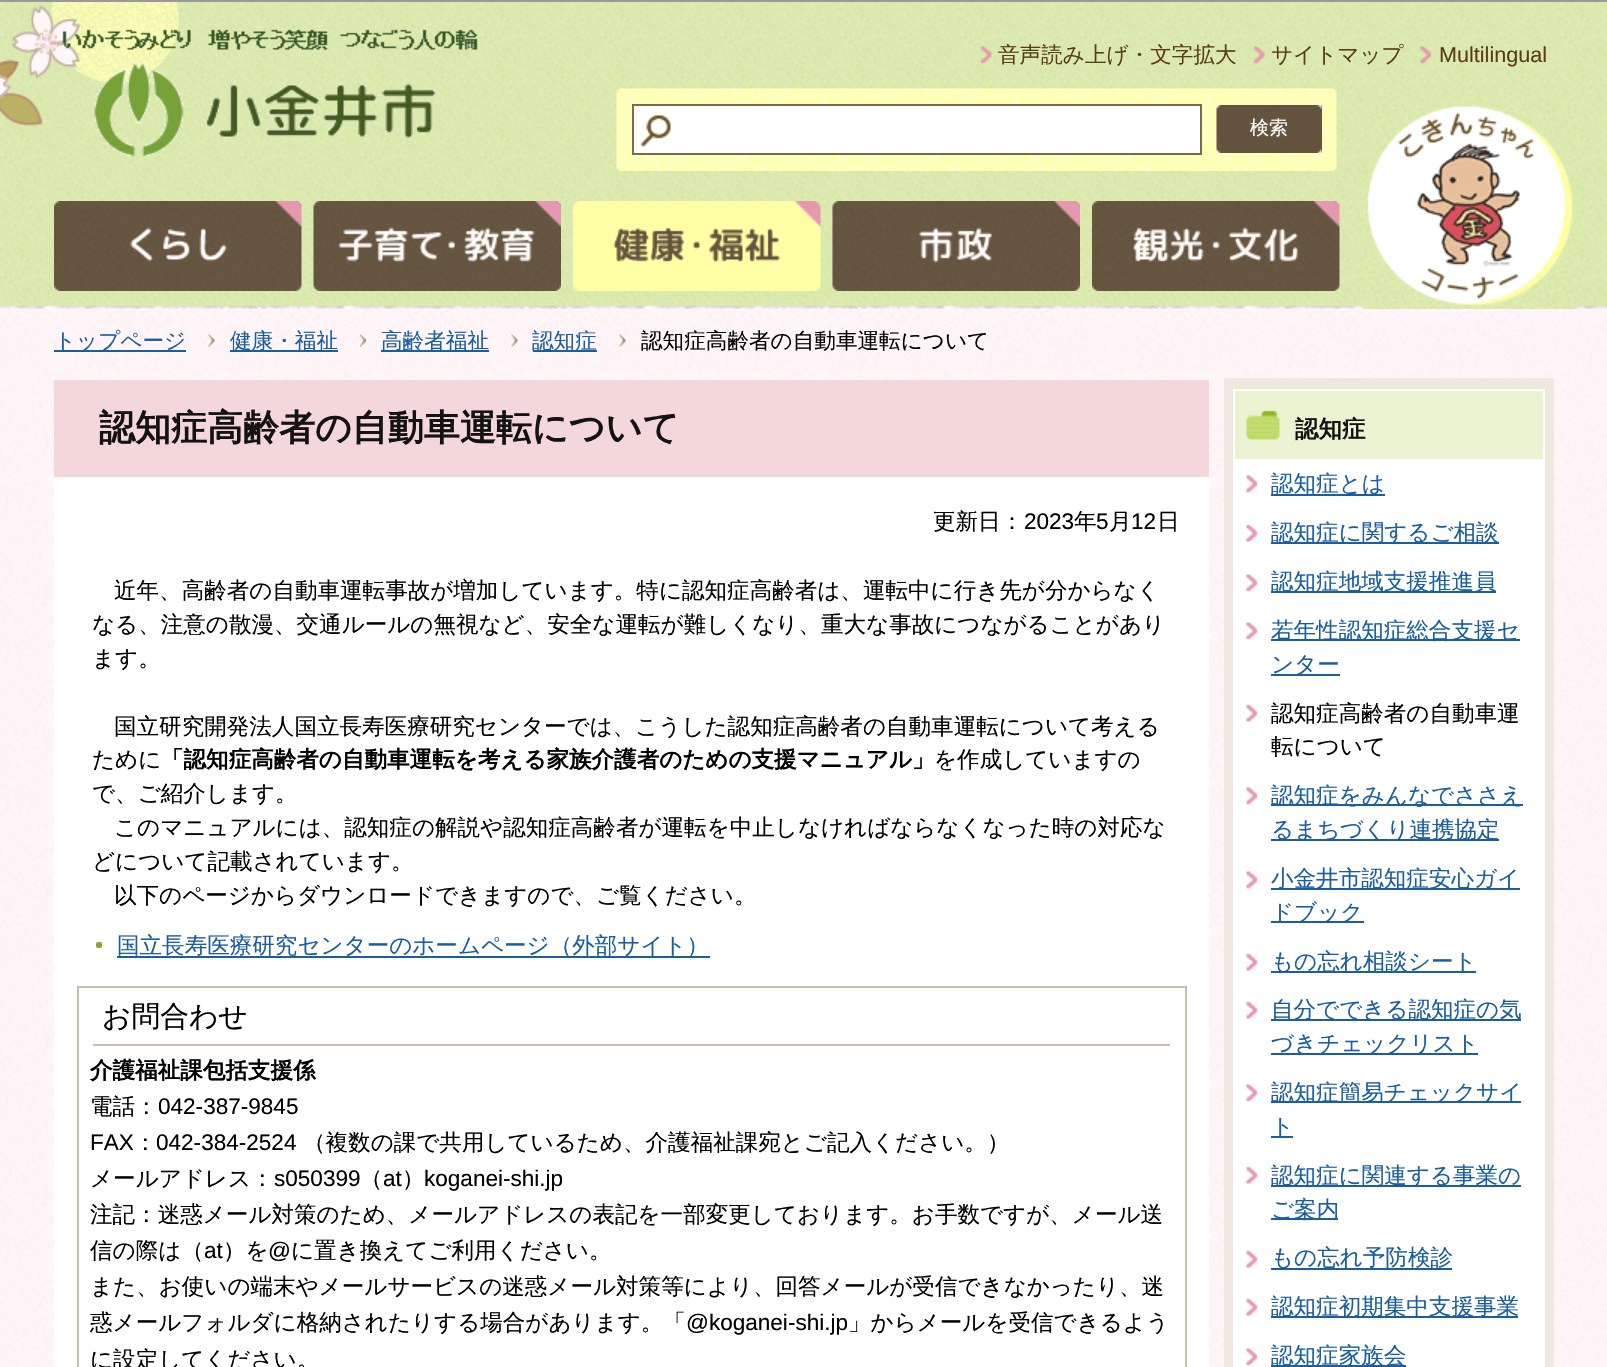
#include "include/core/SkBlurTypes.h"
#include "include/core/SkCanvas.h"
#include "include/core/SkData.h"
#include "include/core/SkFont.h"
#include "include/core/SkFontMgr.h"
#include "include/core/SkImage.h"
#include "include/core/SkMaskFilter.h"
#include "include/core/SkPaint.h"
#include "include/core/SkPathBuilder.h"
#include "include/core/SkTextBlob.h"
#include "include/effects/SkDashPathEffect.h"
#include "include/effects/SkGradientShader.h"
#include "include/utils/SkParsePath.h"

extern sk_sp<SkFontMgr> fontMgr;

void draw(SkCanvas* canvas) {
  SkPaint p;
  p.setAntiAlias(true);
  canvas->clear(SK_ColorWHITE);
  p.setColor(SkColorSetRGB(153, 153, 153));
  canvas->drawRect(SkRect::MakeLTRB(0, 0, 1607, 2), p);
  canvas->drawImageRect(SkImages::DeferredFromEncodedData(SkData::MakeFromFileName("images/1.png")), SkRect::MakeLTRB(0, 2, 1607, 305), SkSamplingOptions());
  canvas->drawImageRect(SkImages::DeferredFromEncodedData(SkData::MakeFromFileName("images/2.png")), SkRect::MakeLTRB(0, 2, 179, 127), SkSamplingOptions());
  canvas->drawImageRect(SkImages::DeferredFromEncodedData(SkData::MakeFromFileName("images/3.png")), SkRect::MakeLTRB(0, 304, 1607, 309), SkSamplingOptions());
  canvas->drawImageRect(SkImages::DeferredFromEncodedData(SkData::MakeFromFileName("images/4.png")), SkRect::MakeLTRB(62, 25, 478, 157), SkSamplingOptions());
  canvas->drawImageRect(SkImages::DeferredFromEncodedData(SkData::MakeFromFileName("images/5.png")), SkRect::MakeLTRB(979, 45, 993, 65), SkSamplingOptions());
  canvas->drawImageRect(SkImages::DeferredFromEncodedData(SkData::MakeFromFileName("images/6.png")), SkRect::MakeLTRB(1252, 45, 1266, 65), SkSamplingOptions());
  canvas->drawImageRect(SkImages::DeferredFromEncodedData(SkData::MakeFromFileName("images/7.png")), SkRect::MakeLTRB(1419, 45, 1433, 65), SkSamplingOptions());
  canvas->drawImageRect(SkImages::DeferredFromEncodedData(SkData::MakeFromFileName("images/8.png")), SkRect::MakeLTRB(616, 88, 1337, 171), SkSamplingOptions());
  p.setColor(SK_ColorWHITE);
  canvas->drawRect(SkRect::MakeLTRB(634, 106, 1200, 153), p);
  canvas->drawImageRect(SkImages::DeferredFromEncodedData(SkData::MakeFromFileName("images/9.png")), SkRect::MakeLTRB(640, 115, 671, 148), SkSamplingOptions());
  p.setStyle(SkPaint::kStroke_Style);
  p.setStrokeWidth(2);
  p.setColor(SkColorSetRGB(126, 104, 78));
  canvas->drawRect(SkRect::MakeLTRB(633, 105, 1201, 154), p);
  p.setStyle(SkPaint::kFill_Style);
  p.setColor(SkColorSetRGB(100, 83, 62));
  canvas->drawRect(SkRect::MakeLTRB(1321, 105, 1322, 153), p);
  canvas->drawImageRect(SkImages::DeferredFromEncodedData(SkData::MakeFromFileName("images/10.png")), SkRect::MakeLTRB(1216, 105, 1322, 153), SkSamplingOptions());
  canvas->drawImageRect(SkImages::DeferredFromEncodedData(SkData::MakeFromFileName("images/11.png")), SkRect::MakeLTRB(1363, 103, 1577, 309), SkSamplingOptions());
  canvas->drawImageRect(SkImages::DeferredFromEncodedData(SkData::MakeFromFileName("images/12.png")), SkRect::MakeLTRB(54, 201, 302, 291), SkSamplingOptions());
  canvas->drawImageRect(SkImages::DeferredFromEncodedData(SkData::MakeFromFileName("images/13.png")), SkRect::MakeLTRB(313, 201, 561, 291), SkSamplingOptions());
  canvas->drawImageRect(SkImages::DeferredFromEncodedData(SkData::MakeFromFileName("images/14.png")), SkRect::MakeLTRB(573, 201, 821, 291), SkSamplingOptions());
  canvas->drawImageRect(SkImages::DeferredFromEncodedData(SkData::MakeFromFileName("images/15.png")), SkRect::MakeLTRB(832, 201, 1080, 291), SkSamplingOptions());
  canvas->drawImageRect(SkImages::DeferredFromEncodedData(SkData::MakeFromFileName("images/16.png")), SkRect::MakeLTRB(1092, 201, 1340, 291), SkSamplingOptions());
  canvas->drawImageRect(SkImages::DeferredFromEncodedData(SkData::MakeFromFileName("images/17.png")), SkRect::MakeLTRB(0, 309, 1607, 1367), SkSamplingOptions());
  canvas->drawImageRect(SkImages::DeferredFromEncodedData(SkData::MakeFromFileName("images/18.png")), SkRect::MakeLTRB(208, 334, 215, 347), SkSamplingOptions());
  p.setColor(SkColorSetRGB(25, 94, 159));
  canvas->drawRect(SkRect::MakeLTRB(54, 350, 186, 352), p);
  canvas->drawImageRect(SkImages::DeferredFromEncodedData(SkData::MakeFromFileName("images/19.png")), SkRect::MakeLTRB(360, 334, 366, 347), SkSamplingOptions());
  canvas->drawRect(SkRect::MakeLTRB(230, 350, 338, 352), p);
  canvas->drawImageRect(SkImages::DeferredFromEncodedData(SkData::MakeFromFileName("images/20.png")), SkRect::MakeLTRB(511, 334, 518, 347), SkSamplingOptions());
  canvas->drawRect(SkRect::MakeLTRB(381, 350, 489, 352), p);
  canvas->drawImageRect(SkImages::DeferredFromEncodedData(SkData::MakeFromFileName("images/21.png")), SkRect::MakeLTRB(619, 334, 626, 347), SkSamplingOptions());
  canvas->drawRect(SkRect::MakeLTRB(533, 350, 597, 352), p);
  p.setColor(SkColorSetRGB(244, 215, 218));
  canvas->drawRect(SkRect::MakeLTRB(54, 380, 1209, 477), p);
  p.setColor(SK_ColorWHITE);
  canvas->drawRect(SkRect::MakeLTRB(54, 477, 1209, 1367), p);
  canvas->drawImageRect(SkImages::DeferredFromEncodedData(SkData::MakeFromFileName("images/22.png")), SkRect::MakeLTRB(96, 942, 102, 948), SkSamplingOptions());
  p.setColor(SkColorSetRGB(25, 94, 159));
  canvas->drawRect(SkRect::MakeLTRB(117, 956, 710, 958), p);
  p.setStyle(SkPaint::kStroke_Style);
  p.setColor(SkColorSetRGB(203, 188, 169));
  canvas->drawRect(SkRect::MakeLTRB(78, 987, 1186, 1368), p);
  p.setStyle(SkPaint::kFill_Style);
  canvas->drawRect(SkRect::MakeLTRB(93, 1044, 1170, 1046), p);
  p.setColor(SkColorSetRGB(238, 232, 223));
  canvas->drawRect(SkRect::MakeLTRB(1224, 378, 1554, 1367), p);
  p.setColor(SK_ColorWHITE);
  canvas->drawRect(SkRect::MakeLTRB(1233, 461, 1545, 1367), p);
  p.setColor(SkColorSetRGB(236, 243, 211));
  canvas->drawRect(SkRect::MakeLTRB(1234, 390, 1544, 460), p);
  p.setStyle(SkPaint::kStroke_Style);
  p.setColor(SK_ColorWHITE);
  canvas->drawRect(SkRect::MakeLTRB(1234, 390, 1544, 460), p);
  canvas->drawImageRect(SkImages::DeferredFromEncodedData(SkData::MakeFromFileName("images/23.png")), SkRect::MakeLTRB(1246, 410, 1280, 440), SkSamplingOptions());
  canvas->drawImageRect(SkImages::DeferredFromEncodedData(SkData::MakeFromFileName("images/24.png")), SkRect::MakeLTRB(1246, 475, 1258, 493), SkSamplingOptions());
  p.setStyle(SkPaint::kFill_Style);
  p.setColor(SkColorSetRGB(25, 94, 159));
  canvas->drawRect(SkRect::MakeLTRB(1271, 494, 1385, 496), p);
  canvas->drawImageRect(SkImages::DeferredFromEncodedData(SkData::MakeFromFileName("images/25.png")), SkRect::MakeLTRB(1246, 524, 1258, 542), SkSamplingOptions());
  canvas->drawRect(SkRect::MakeLTRB(1271, 542, 1499, 544), p);
  canvas->drawImageRect(SkImages::DeferredFromEncodedData(SkData::MakeFromFileName("images/24.png")), SkRect::MakeLTRB(1246, 574, 1258, 592), SkSamplingOptions());
  canvas->drawRect(SkRect::MakeLTRB(1271, 591, 1496, 593), p);
  canvas->drawImageRect(SkImages::DeferredFromEncodedData(SkData::MakeFromFileName("images/24.png")), SkRect::MakeLTRB(1246, 622, 1258, 640), SkSamplingOptions());
  canvas->drawRect(SkRect::MakeLTRB(1271, 639, 1520, 641), p);
  canvas->drawRect(SkRect::MakeLTRB(1271, 674, 1340, 676), p);
  canvas->drawImageRect(SkImages::DeferredFromEncodedData(SkData::MakeFromFileName("images/25.png")), SkRect::MakeLTRB(1246, 704, 1258, 722), SkSamplingOptions());
  canvas->drawImageRect(SkImages::DeferredFromEncodedData(SkData::MakeFromFileName("images/24.png")), SkRect::MakeLTRB(1246, 787, 1258, 805), SkSamplingOptions());
  canvas->drawRect(SkRect::MakeLTRB(1271, 804, 1523, 806), p);
  canvas->drawRect(SkRect::MakeLTRB(1271, 839, 1499, 841), p);
  canvas->drawImageRect(SkImages::DeferredFromEncodedData(SkData::MakeFromFileName("images/24.png")), SkRect::MakeLTRB(1246, 871, 1258, 889), SkSamplingOptions());
  canvas->drawRect(SkRect::MakeLTRB(1271, 888, 1520, 890), p);
  canvas->drawRect(SkRect::MakeLTRB(1271, 921, 1364, 923), p);
  canvas->drawImageRect(SkImages::DeferredFromEncodedData(SkData::MakeFromFileName("images/25.png")), SkRect::MakeLTRB(1246, 953, 1258, 971), SkSamplingOptions());
  canvas->drawRect(SkRect::MakeLTRB(1271, 971, 1476, 973), p);
  canvas->drawImageRect(SkImages::DeferredFromEncodedData(SkData::MakeFromFileName("images/25.png")), SkRect::MakeLTRB(1246, 1001, 1258, 1019), SkSamplingOptions());
  canvas->drawRect(SkRect::MakeLTRB(1271, 1019, 1521, 1021), p);
  canvas->drawRect(SkRect::MakeLTRB(1271, 1053, 1478, 1055), p);
  canvas->drawImageRect(SkImages::DeferredFromEncodedData(SkData::MakeFromFileName("images/24.png")), SkRect::MakeLTRB(1246, 1084, 1258, 1102), SkSamplingOptions());
  canvas->drawRect(SkRect::MakeLTRB(1271, 1101, 1521, 1103), p);
  canvas->drawRect(SkRect::MakeLTRB(1271, 1136, 1293, 1138), p);
  canvas->drawImageRect(SkImages::DeferredFromEncodedData(SkData::MakeFromFileName("images/25.png")), SkRect::MakeLTRB(1246, 1166, 1258, 1184), SkSamplingOptions());
  canvas->drawRect(SkRect::MakeLTRB(1271, 1185, 1521, 1187), p);
  canvas->drawRect(SkRect::MakeLTRB(1271, 1218, 1338, 1220), p);
  canvas->drawImageRect(SkImages::DeferredFromEncodedData(SkData::MakeFromFileName("images/25.png")), SkRect::MakeLTRB(1246, 1250, 1258, 1268), SkSamplingOptions());
  canvas->drawRect(SkRect::MakeLTRB(1271, 1268, 1452, 1270), p);
  canvas->drawImageRect(SkImages::DeferredFromEncodedData(SkData::MakeFromFileName("images/25.png")), SkRect::MakeLTRB(1246, 1298, 1258, 1316), SkSamplingOptions());
  canvas->drawRect(SkRect::MakeLTRB(1271, 1316, 1518, 1318), p);
  canvas->drawImageRect(SkImages::DeferredFromEncodedData(SkData::MakeFromFileName("images/24.png")), SkRect::MakeLTRB(1246, 1348, 1258, 1366), SkSamplingOptions());
  canvas->drawRect(SkRect::MakeLTRB(1271, 1365, 1406, 1367), p);
  SkFont font1(fontMgr->matchFamilyStyle("WenQuanYi Zen Hei", SkFontStyle(500, SkFontStyle::kNormal_Width, SkFontStyle::kUpright_Slant)), 21.6f);
  font1.setSubpixel(true);
  p.setColor(SkColorSetRGB(91, 61, 19));
  canvas->drawString("音声読み上げ・文字拡大", 998, 62, font1, p);
  canvas->drawString("サイトマップ", 1271, 62, font1, p);
  SkFont font2(fontMgr->matchFamilyStyle("Liberation Sans", SkFontStyle::Normal()), 21.6f);
  font2.setSubpixel(true);
  canvas->drawString("Multilingual", 1439, 62, font2, p);
  SkFont font3(fontMgr->matchFamilyStyle("WenQuanYi Zen Hei", SkFontStyle(500, SkFontStyle::kNormal_Width, SkFontStyle::kUpright_Slant)), 19);
  font3.setSubpixel(true);
  p.setColor(SK_ColorWHITE);
  canvas->drawString("検索", 1250, 134, font3, p);
  p.setColor(SkColorSetRGB(25, 94, 159));
  canvas->drawString("トップページ", 54, 348, font1, p);
  canvas->drawString("健康・福祉", 230, 348, font1, p);
  canvas->drawString("高齢者福祉", 381, 348, font1, p);
  canvas->drawString("認知症", 532, 348, font1, p);
  p.setColor(SK_ColorBLACK);
  canvas->drawString("認知症高齢者の自動車運転について", 641, 348, font1, p);
  SkFont font4(fontMgr->matchFamilyStyle("WenQuanYi Zen Hei", SkFontStyle::Bold()), 36);
  font4.setSubpixel(true);
  p.setColor(SkColorSetRGB(19, 19, 19));
  canvas->drawString("認知症高齢者の自動車運転について", 99, 440, font4, p);
  SkFont font5(fontMgr->matchFamilyStyle("WenQuanYi Zen Hei", SkFontStyle(500, SkFontStyle::kNormal_Width, SkFontStyle::kUpright_Slant)), 22.55f);
  font5.setSubpixel(true);
  p.setColor(SK_ColorBLACK);
  canvas->drawString("更新日：", 933, 529, font5, p);
  SkFont font6(fontMgr->matchFamilyStyle("Liberation Sans", SkFontStyle::Normal()), 22.55f);
  font6.setSubpixel(true);
  canvas->drawString("2023", 1024, 529, font6, p);
  canvas->drawString("年", 1074, 529, font5, p);
  canvas->drawString("5", 1096, 529, font6, p);
  canvas->drawString("月", 1109, 529, font5, p);
  canvas->drawString("12", 1131, 529, font6, p);
  canvas->drawString("日", 1157, 529, font5, p);
  canvas->drawString("近年、高齢者の自動車運転事故が増加しています。特に認知症高齢者は、運転中に行き先が分からなく", 114, 598, font5, p);
  canvas->drawString("なる、注意の散漫、交通ルールの無視など、安全な運転が難しくなり、重大な事故につながることがあり", 92, 632, font5, p);
  canvas->drawString("ます。", 92, 666, font5, p);
  canvas->drawString("国立研究開発法人国立長寿医療研究センターでは、こうした認知症高齢者の自動車運転について考える", 114, 734, font5, p);
  canvas->drawString("ために", 92, 767, font5, p);
  SkFont font7(fontMgr->matchFamilyStyle("WenQuanYi Zen Hei", SkFontStyle::Bold()), 22.55f);
  font7.setSubpixel(true);
  canvas->drawString("「認知症高齢者の自動車運転を考える家族介護者のための支援マニュアル」", 161, 767, font7, p);
  canvas->drawString("を作成していますの", 934, 767, font5, p);
  canvas->drawString("で、ご紹介します。", 92, 801, font5, p);
  canvas->drawString("このマニュアルには、認知症の解説や認知症高齢者が運転を中止しなければならなくなった時の対応な", 114, 835, font5, p);
  canvas->drawString("どについて記載されています。", 92, 869, font5, p);
  canvas->drawString("以下のページからダウンロードできますので、ご覧ください。", 114, 903, font5, p);
  p.setColor(SkColorSetRGB(25, 94, 159));
  canvas->drawString("国立長寿医療研究センターのホームページ（外部サイト）", 117, 953, font5, p);
  SkFont font8(fontMgr->matchFamilyStyle("WenQuanYi Zen Hei", SkFontStyle(500, SkFontStyle::kNormal_Width, SkFontStyle::kUpright_Slant)), 28.75f);
  font8.setSubpixel(true);
  p.setColor(SK_ColorBLACK);
  canvas->drawString("お問合わせ", 102, 1026, font8, p);
  canvas->drawString("介護福祉課包括支援係", 90, 1078, font7, p);
  canvas->drawString("電話：", 90, 1114, font5, p);
  canvas->drawString("042-387-9845", 158, 1114, font6, p);
  canvas->drawString("FAX", 90, 1150, font6, p);
  canvas->drawString("：", 134, 1150, font5, p);
  canvas->drawString("042-384-2524", 156, 1150, font6, p);
  canvas->drawString("（複数の課で共用しているため、介護福祉課宛とご記入ください。）", 303, 1150, font5, p);
  canvas->drawString("メールアドレス：", 90, 1186, font5, p);
  canvas->drawString("s050399", 274, 1186, font6, p);
  canvas->drawString("（", 360, 1186, font5, p);
  canvas->drawString("at", 383, 1186, font6, p);
  canvas->drawString("）", 402, 1186, font5, p);
  canvas->drawString("koganei-shi.jp", 424, 1186, font6, p);
  canvas->drawString("注記：迷惑メール対策のため、メールアドレスの表記を一部変更しております。お手数ですが、メール送", 90, 1222, font5, p);
  canvas->drawString("信の際は（", 90, 1258, font5, p);
  canvas->drawString("at", 204, 1258, font6, p);
  canvas->drawString("）を", 223, 1258, font5, p);
  canvas->drawString("@", 268, 1258, font6, p);
  canvas->drawString("に置き換えてご利用ください。", 291, 1258, font5, p);
  canvas->drawString("また、お使いの端末やメールサービスの迷惑メール対策等により、回答メールが受信できなかったり、迷", 90, 1294, font5, p);
  canvas->drawString("惑メールフォルダに格納されたりする場合があります。「", 90, 1330, font5, p);
  canvas->drawString("@koganei-shi.jp", 686, 1330, font6, p);
  canvas->drawString("」からメールを受信できるよう", 848, 1330, font5, p);
  canvas->drawString("に設定してください。", 90, 1367, font5, p);
  SkFont font9(fontMgr->matchFamilyStyle("WenQuanYi Zen Hei", SkFontStyle::Bold()), 23.5f);
  font9.setSubpixel(true);
  p.setColor(SkColorSetRGB(19, 19, 19));
  canvas->drawString("認知症", 1295, 437, font9, p);
  p.setColor(SkColorSetRGB(25, 94, 159));
  canvas->drawString("認知症とは", 1271, 491, font5, p);
  canvas->drawString("認知症に関するご相談", 1271, 540, font5, p);
  canvas->drawString("認知症地域支援推進員", 1271, 589, font5, p);
  canvas->drawString("若年性認知症総合支援セ", 1271, 638, font5, p);
  canvas->drawString("ンター", 1271, 672, font5, p);
  p.setColor(SK_ColorBLACK);
  canvas->drawString("認知症高齢者の自動車運", 1271, 721, font5, p);
  canvas->drawString("転について", 1271, 754, font5, p);
  p.setColor(SkColorSetRGB(25, 94, 159));
  canvas->drawString("認知症をみんなでささえ", 1271, 803, font5, p);
  canvas->drawString("るまちづくり連携協定", 1271, 837, font5, p);
  canvas->drawString("小金井市認知症安心ガイ", 1271, 886, font5, p);
  canvas->drawString("ドブック", 1271, 920, font5, p);
  canvas->drawString("もの忘れ相談シート", 1271, 969, font5, p);
  canvas->drawString("自分でできる認知症の気", 1271, 1017, font5, p);
  canvas->drawString("づきチェックリスト", 1271, 1051, font5, p);
  canvas->drawString("認知症簡易チェックサイ", 1271, 1100, font5, p);
  canvas->drawString("ト", 1271, 1134, font5, p);
  canvas->drawString("認知症に関連する事業の", 1271, 1183, font5, p);
  canvas->drawString("ご案内", 1271, 1217, font5, p);
  canvas->drawString("もの忘れ予防検診", 1271, 1265, font5, p);
  canvas->drawString("認知症初期集中支援事業", 1271, 1314, font5, p);
  canvas->drawString("認知症家族会", 1271, 1363, font5, p);
}
